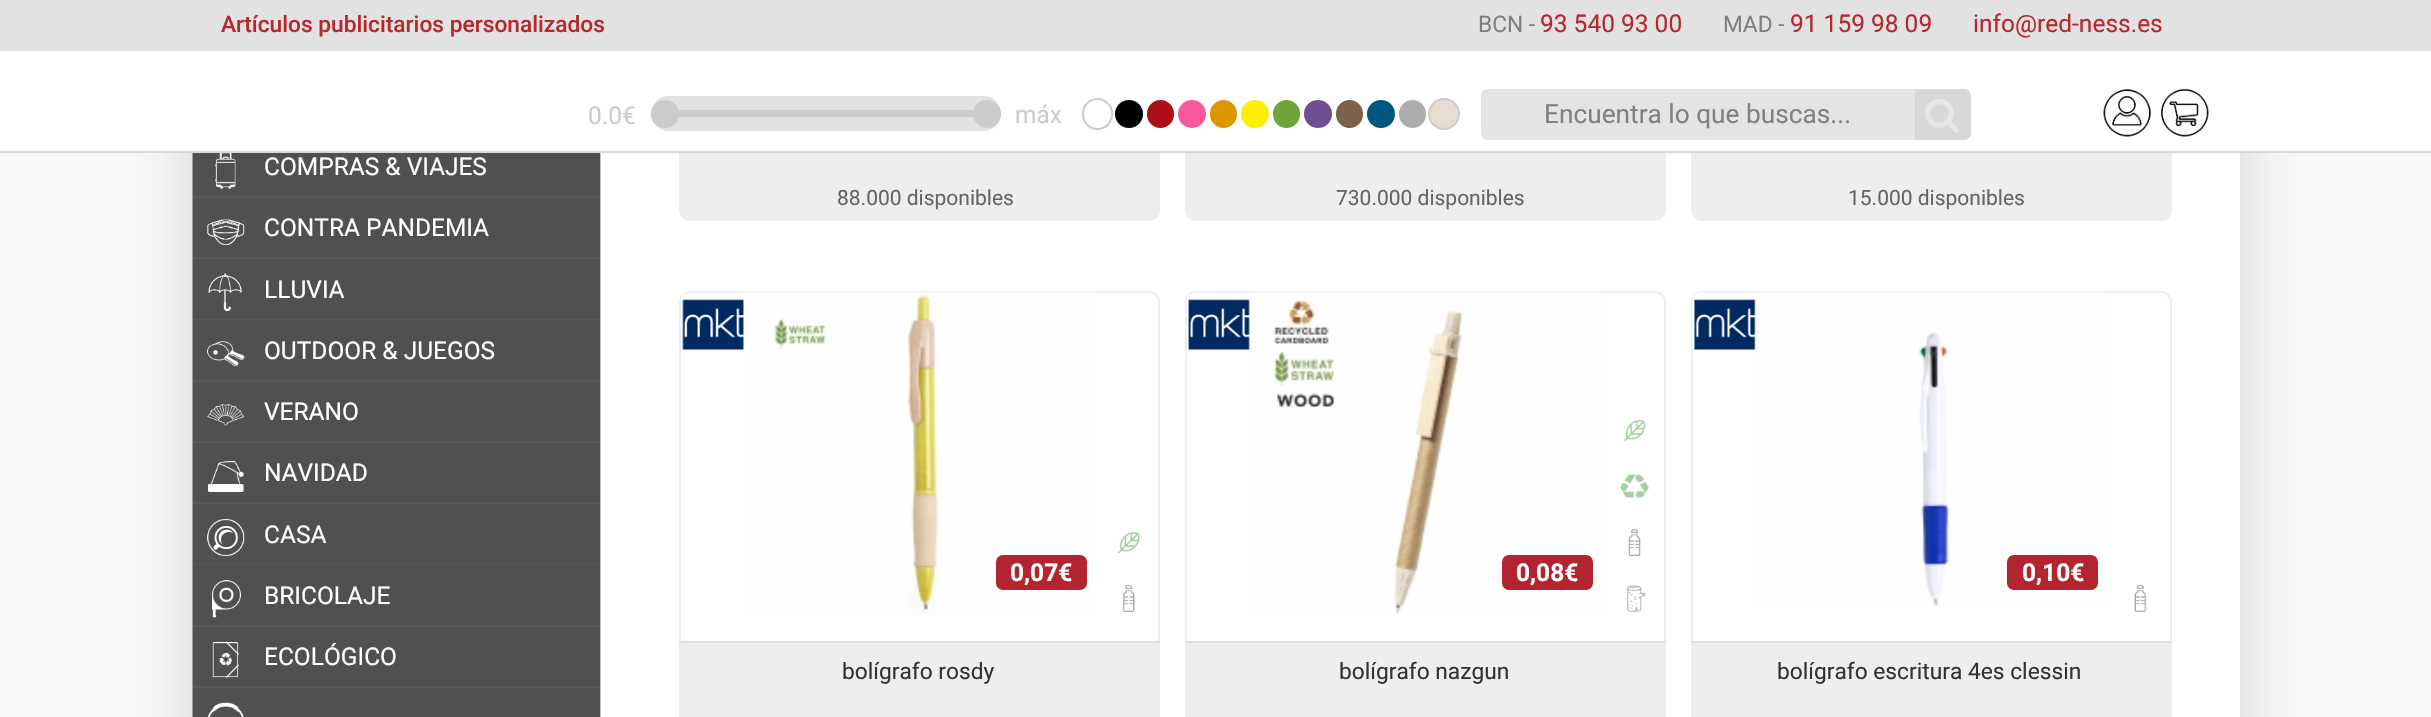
#include "include/core/SkBlurTypes.h"
#include "include/core/SkCanvas.h"
#include "include/core/SkData.h"
#include "include/core/SkFont.h"
#include "include/core/SkFontMgr.h"
#include "include/core/SkImage.h"
#include "include/core/SkMaskFilter.h"
#include "include/core/SkPaint.h"
#include "include/core/SkPathBuilder.h"
#include "include/core/SkTextBlob.h"
#include "include/effects/SkDashPathEffect.h"
#include "include/effects/SkGradientShader.h"
#include "include/utils/SkParsePath.h"

extern sk_sp<SkFontMgr> fontMgr;

void draw(SkCanvas* canvas) {
  SkPaint p;
  p.setAntiAlias(true);
  canvas->clear(SkColorSetRGB(249, 249, 249));
  p.setColor(SkColorSetARGB(38, 0, 0, 0));
  p.setMaskFilter(SkMaskFilter::MakeBlur(kNormal_SkBlurStyle, 32.5f));
  canvas->drawRect(SkRect::MakeLTRB(193, -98, 2240, 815), p);
  p.setMaskFilter(nullptr);
  p.setColor(SkColorSetRGB(226, 226, 226));
  canvas->drawRect(SkRect::MakeLTRB(0, 0, 2431, 51), p);
  p.setColor(SK_ColorWHITE);
  canvas->drawRect(SkRect::MakeLTRB(601, 153, 2240, 717), p);
  p.setColor(SkColorSetRGB(239, 238, 238));
  canvas->drawPath(SkPathBuilder().moveTo(679, 72).lineTo(1160, 72).lineTo(1160, 210).cubicTo(1160, 216, 1155, 221, 1149, 221).lineTo(690, 221).cubicTo(684, 221, 679, 216, 679, 210).close().detach(), p);
  canvas->drawPath(SkPathBuilder().moveTo(1185, 72).lineTo(1666, 72).lineTo(1666, 210).cubicTo(1666, 216, 1661, 221, 1655, 221).lineTo(1196, 221).cubicTo(1190, 221, 1185, 216, 1185, 210).close().detach(), p);
  canvas->drawPath(SkPathBuilder().moveTo(1691, 72).lineTo(2172, 72).lineTo(2172, 210).cubicTo(2172, 216, 2167, 221, 2161, 221).lineTo(1702, 221).cubicTo(1696, 221, 1691, 216, 1691, 210).close().detach(), p);
  p.setColor(SK_ColorWHITE);
  canvas->drawRect(SkRect::MakeLTRB(0, 51, 2431, 151), p);
  p.setColor(SkColorSetRGB(216, 214, 214));
  canvas->drawRect(SkRect::MakeLTRB(0, 151, 2431, 153), p);
  p.setColor(SkColorSetRGB(226, 226, 226));
  canvas->drawRoundRect(SkRect::MakeLTRB(651, 96, 1001, 131), 17.5f, 17.5f, p);
  p.setColor(SkColorSetRGB(204, 203, 203));
  canvas->drawRoundRect(SkRect::MakeLTRB(651, 110, 1001, 117), 3.5f, 3.5f, p);
  canvas->drawCircle(665, 114, 14, p);
  canvas->drawCircle(987, 114, 14, p);
  p.setStyle(SkPaint::kStroke_Style);
  p.setStrokeWidth(2);
  p.setColor(SkColorSetRGB(204, 204, 204));
  canvas->drawRoundRect(SkRect::MakeLTRB(1083, 99, 1112, 129), 14.5f, 14.5f, p);
  p.setStyle(SkPaint::kFill_Style);
  p.setColor(SK_ColorBLACK);
  canvas->drawCircle(1129, 114, 15, p);
  p.setStyle(SkPaint::kStroke_Style);
  p.setColor(SK_ColorWHITE);
  canvas->drawCircle(1129, 114, 15, p);
  p.setStyle(SkPaint::kFill_Style);
  p.setColor(SkColorSetRGB(173, 14, 23));
  canvas->drawRoundRect(SkRect::MakeLTRB(1146, 99, 1175, 129), 14.5f, 14.5f, p);
  p.setStyle(SkPaint::kStroke_Style);
  p.setColor(SK_ColorWHITE);
  canvas->drawRoundRect(SkRect::MakeLTRB(1146, 99, 1175, 129), 14.5f, 14.5f, p);
  p.setStyle(SkPaint::kFill_Style);
  p.setColor(SkColorSetRGB(247, 89, 154));
  canvas->drawCircle(1192, 114, 15, p);
  p.setStyle(SkPaint::kStroke_Style);
  p.setColor(SK_ColorWHITE);
  canvas->drawCircle(1192, 114, 15, p);
  p.setStyle(SkPaint::kFill_Style);
  p.setColor(SkColorSetRGB(219, 150, 0));
  canvas->drawRoundRect(SkRect::MakeLTRB(1209, 99, 1238, 129), 14.5f, 14.5f, p);
  p.setStyle(SkPaint::kStroke_Style);
  p.setColor(SK_ColorWHITE);
  canvas->drawRoundRect(SkRect::MakeLTRB(1209, 99, 1238, 129), 14.5f, 14.5f, p);
  p.setStyle(SkPaint::kFill_Style);
  p.setColor(SkColorSetRGB(254, 238, 0));
  canvas->drawCircle(1255, 114, 15, p);
  p.setStyle(SkPaint::kStroke_Style);
  p.setColor(SK_ColorWHITE);
  canvas->drawCircle(1255, 114, 15, p);
  p.setStyle(SkPaint::kFill_Style);
  p.setColor(SkColorSetRGB(112, 164, 58));
  canvas->drawRoundRect(SkRect::MakeLTRB(1272, 99, 1301, 129), 14.5f, 14.5f, p);
  p.setStyle(SkPaint::kStroke_Style);
  p.setColor(SK_ColorWHITE);
  canvas->drawRoundRect(SkRect::MakeLTRB(1272, 99, 1301, 129), 14.5f, 14.5f, p);
  p.setStyle(SkPaint::kFill_Style);
  p.setColor(SkColorSetRGB(110, 79, 148));
  canvas->drawCircle(1318, 114, 15, p);
  p.setStyle(SkPaint::kStroke_Style);
  p.setColor(SK_ColorWHITE);
  canvas->drawCircle(1318, 114, 15, p);
  p.setStyle(SkPaint::kFill_Style);
  p.setColor(SkColorSetRGB(123, 96, 76));
  canvas->drawRoundRect(SkRect::MakeLTRB(1335, 99, 1364, 129), 14.5f, 14.5f, p);
  p.setStyle(SkPaint::kStroke_Style);
  p.setColor(SK_ColorWHITE);
  canvas->drawRoundRect(SkRect::MakeLTRB(1335, 99, 1364, 129), 14.5f, 14.5f, p);
  p.setStyle(SkPaint::kFill_Style);
  p.setColor(SkColorSetRGB(0, 87, 126));
  canvas->drawCircle(1381, 114, 15, p);
  p.setStyle(SkPaint::kStroke_Style);
  p.setColor(SK_ColorWHITE);
  canvas->drawCircle(1381, 114, 15, p);
  p.setStyle(SkPaint::kFill_Style);
  p.setColor(SkColorSetRGB(173, 173, 173));
  canvas->drawRoundRect(SkRect::MakeLTRB(1398, 99, 1427, 129), 14.5f, 14.5f, p);
  p.setStyle(SkPaint::kStroke_Style);
  p.setColor(SK_ColorWHITE);
  canvas->drawRoundRect(SkRect::MakeLTRB(1398, 99, 1427, 129), 14.5f, 14.5f, p);
  p.setStyle(SkPaint::kFill_Style);
  p.setColor(SkColorSetRGB(230, 222, 208));
  canvas->drawCircle(1444, 114, 15, p);
  p.setStyle(SkPaint::kStroke_Style);
  p.setColor(SkColorSetRGB(204, 204, 204));
  canvas->drawCircle(1444, 114, 15, p);
  p.setStyle(SkPaint::kFill_Style);
  p.setColor(SkColorSetRGB(228, 228, 228));
  canvas->drawPath(SkPathBuilder().moveTo(1488, 89).lineTo(1915, 89).lineTo(1915, 140).lineTo(1488, 140).cubicTo(1484, 140, 1481, 137, 1481, 133).lineTo(1481, 96).cubicTo(1481, 92, 1484, 89, 1488, 89).close().detach(), p);
  p.setColor(SkColorSetRGB(216, 216, 216));
  canvas->drawPath(SkPathBuilder().moveTo(1915, 89).lineTo(1964, 89).cubicTo(1968, 89, 1971, 92, 1971, 96).lineTo(1971, 133).cubicTo(1971, 137, 1968, 140, 1964, 140).lineTo(1915, 140).close().detach(), p);
  canvas->drawImageRect(SkImages::DeferredFromEncodedData(SkData::MakeFromFileName("images/1.png")), SkRect::MakeLTRB(1925, 99, 1959, 133), SkSamplingOptions());
  canvas->drawImageRect(SkImages::DeferredFromEncodedData(SkData::MakeFromFileName("images/2.png")), SkRect::MakeLTRB(2103, 89, 2151, 137), SkSamplingOptions());
  canvas->drawImageRect(SkImages::DeferredFromEncodedData(SkData::MakeFromFileName("images/3.png")), SkRect::MakeLTRB(2161, 89, 2209, 137), SkSamplingOptions());
  canvas->drawImageRect(SkImages::DeferredFromEncodedData(SkData::MakeFromFileName("images/4.png")), SkRect::MakeLTRB(192, 153, 601, 717), SkSamplingOptions());
  p.setColor(SkColorSetRGB(81, 79, 79));
  canvas->drawRect(SkRect::MakeLTRB(599, 153, 600, 717), p);
  canvas->drawImageRect(SkImages::DeferredFromEncodedData(SkData::MakeFromFileName("images/5.png")), SkRect::MakeLTRB(215, 153, 236, 189), SkSamplingOptions());
  p.setColor(SkColorSetRGB(88, 88, 88));
  canvas->drawRect(SkRect::MakeLTRB(193, 196, 600, 198), p);
  canvas->drawImageRect(SkImages::DeferredFromEncodedData(SkData::MakeFromFileName("images/6.png")), SkRect::MakeLTRB(207, 219, 245, 246), SkSamplingOptions());
  canvas->drawRect(SkRect::MakeLTRB(193, 257, 600, 259), p);
  canvas->drawImageRect(SkImages::DeferredFromEncodedData(SkData::MakeFromFileName("images/7.png")), SkRect::MakeLTRB(208, 273, 242, 311), SkSamplingOptions());
  canvas->drawRect(SkRect::MakeLTRB(193, 319, 600, 320), p);
  canvas->drawImageRect(SkImages::DeferredFromEncodedData(SkData::MakeFromFileName("images/8.png")), SkRect::MakeLTRB(207, 341, 245, 366), SkSamplingOptions());
  canvas->drawRect(SkRect::MakeLTRB(193, 380, 600, 382), p);
  canvas->drawImageRect(SkImages::DeferredFromEncodedData(SkData::MakeFromFileName("images/9.png")), SkRect::MakeLTRB(207, 404, 245, 426), SkSamplingOptions());
  canvas->drawRect(SkRect::MakeLTRB(193, 441, 600, 443), p);
  canvas->drawImageRect(SkImages::DeferredFromEncodedData(SkData::MakeFromFileName("images/10.png")), SkRect::MakeLTRB(208, 461, 244, 492), SkSamplingOptions());
  canvas->drawRect(SkRect::MakeLTRB(193, 502, 600, 504), p);
  canvas->drawImageRect(SkImages::DeferredFromEncodedData(SkData::MakeFromFileName("images/11.png")), SkRect::MakeLTRB(207, 519, 245, 556), SkSamplingOptions());
  canvas->drawRect(SkRect::MakeLTRB(193, 564, 600, 565), p);
  canvas->drawImageRect(SkImages::DeferredFromEncodedData(SkData::MakeFromFileName("images/12.png")), SkRect::MakeLTRB(212, 580, 241, 618), SkSamplingOptions());
  canvas->drawRect(SkRect::MakeLTRB(193, 625, 600, 627), p);
  canvas->drawImageRect(SkImages::DeferredFromEncodedData(SkData::MakeFromFileName("images/13.png")), SkRect::MakeLTRB(212, 641, 239, 678), SkSamplingOptions());
  canvas->drawRect(SkRect::MakeLTRB(193, 686, 600, 688), p);
  canvas->drawImageRect(SkImages::DeferredFromEncodedData(SkData::MakeFromFileName("images/14.png")), SkRect::MakeLTRB(208, 702, 244, 717), SkSamplingOptions());
  p.setStyle(SkPaint::kStroke_Style);
  p.setColor(SkColorSetRGB(239, 238, 238));
  canvas->drawPath(SkPathBuilder().moveTo(690, 292).lineTo(1149, 292).cubicTo(1154.5f, 292, 1159, 296.5f, 1159, 302).lineTo(1159, 708).lineTo(680, 708).lineTo(680, 302).cubicTo(680, 296.5f, 684.5f, 292, 690, 292).close().detach(), p);
  canvas->drawImageRect(SkImages::DeferredFromEncodedData(SkData::MakeFromFileName("images/16.png")), SkRect::MakeLTRB(745, 292, 1096, 615), SkSamplingOptions());
  canvas->drawImageRect(SkImages::DeferredFromEncodedData(SkData::MakeFromFileName("images/15.png")), SkRect::MakeLTRB(681, 292, 746, 351), SkSamplingOptions());
  p.setStyle(SkPaint::kFill_Style);
  p.setColor(SkColorSetRGB(177, 36, 48));
  canvas->drawRoundRect(SkRect::MakeLTRB(996, 555, 1087, 590), 7, 7, p);
  canvas->drawImageRect(SkImages::DeferredFromEncodedData(SkData::MakeFromFileName("images/17.png")), SkRect::MakeLTRB(1118, 531, 1140, 554), SkSamplingOptions());
  canvas->drawImageRect(SkImages::DeferredFromEncodedData(SkData::MakeFromFileName("images/18.png")), SkRect::MakeLTRB(1122, 584, 1135, 613), SkSamplingOptions());
  p.setColor(SkColorSetRGB(239, 238, 238));
  canvas->drawRect(SkRect::MakeLTRB(679, 643, 1160, 717), p);
  p.setColor(SkColorSetRGB(224, 224, 224));
  canvas->drawRect(SkRect::MakeLTRB(679, 641, 1160, 643), p);
  p.setStyle(SkPaint::kStroke_Style);
  p.setColor(SkColorSetRGB(239, 238, 238));
  canvas->drawPath(SkPathBuilder().moveTo(1196, 292).lineTo(1655, 292).cubicTo(1660.5f, 292, 1665, 296.5f, 1665, 302).lineTo(1665, 708).lineTo(1186, 708).lineTo(1186, 302).cubicTo(1186, 296.5f, 1190.5f, 292, 1196, 292).close().detach(), p);
  canvas->drawImageRect(SkImages::DeferredFromEncodedData(SkData::MakeFromFileName("images/19.png")), SkRect::MakeLTRB(1186, 292, 1251, 357), SkSamplingOptions());
  canvas->drawImageRect(SkImages::DeferredFromEncodedData(SkData::MakeFromFileName("images/20.png")), SkRect::MakeLTRB(1251, 292, 1601, 614), SkSamplingOptions());
  p.setStyle(SkPaint::kFill_Style);
  p.setColor(SkColorSetRGB(177, 36, 48));
  canvas->drawRoundRect(SkRect::MakeLTRB(1502, 555, 1593, 590), 7, 7, p);
  canvas->drawImageRect(SkImages::DeferredFromEncodedData(SkData::MakeFromFileName("images/21.png")), SkRect::MakeLTRB(1623, 419, 1646, 442), SkSamplingOptions());
  canvas->drawImageRect(SkImages::DeferredFromEncodedData(SkData::MakeFromFileName("images/22.png")), SkRect::MakeLTRB(1620, 474, 1649, 499), SkSamplingOptions());
  canvas->drawImageRect(SkImages::DeferredFromEncodedData(SkData::MakeFromFileName("images/23.png")), SkRect::MakeLTRB(1628, 528, 1641, 557), SkSamplingOptions());
  canvas->drawImageRect(SkImages::DeferredFromEncodedData(SkData::MakeFromFileName("images/24.png")), SkRect::MakeLTRB(1627, 585, 1646, 612), SkSamplingOptions());
  p.setColor(SkColorSetRGB(239, 238, 238));
  canvas->drawRect(SkRect::MakeLTRB(1185, 643, 1666, 717), p);
  p.setColor(SkColorSetRGB(224, 224, 224));
  canvas->drawRect(SkRect::MakeLTRB(1185, 641, 1666, 643), p);
  p.setStyle(SkPaint::kStroke_Style);
  p.setColor(SkColorSetRGB(239, 238, 238));
  canvas->drawPath(SkPathBuilder().moveTo(1702, 292).lineTo(2161, 292).cubicTo(2166.5f, 292, 2171, 296.5f, 2171, 302).lineTo(2171, 708).lineTo(1692, 708).lineTo(1692, 302).cubicTo(1692, 296.5f, 1696.5f, 292, 1702, 292).close().detach(), p);
  canvas->drawImageRect(SkImages::DeferredFromEncodedData(SkData::MakeFromFileName("images/25.png")), SkRect::MakeLTRB(1692, 292, 1757, 357), SkSamplingOptions());
  canvas->drawImageRect(SkImages::DeferredFromEncodedData(SkData::MakeFromFileName("images/26.png")), SkRect::MakeLTRB(1757, 292, 2107, 607), SkSamplingOptions());
  p.setStyle(SkPaint::kFill_Style);
  p.setColor(SkColorSetRGB(177, 36, 48));
  canvas->drawRoundRect(SkRect::MakeLTRB(2007, 555, 2098, 590), 7, 7, p);
  canvas->drawImageRect(SkImages::DeferredFromEncodedData(SkData::MakeFromFileName("images/27.png")), SkRect::MakeLTRB(2134, 584, 2147, 613), SkSamplingOptions());
  p.setColor(SkColorSetRGB(239, 238, 238));
  canvas->drawRect(SkRect::MakeLTRB(1691, 643, 2172, 717), p);
  p.setColor(SkColorSetRGB(224, 224, 224));
  canvas->drawRect(SkRect::MakeLTRB(1691, 641, 2172, 643), p);
  SkFont font1(fontMgr->matchFamilyStyle("Roboto", SkFontStyle(500, SkFontStyle::kNormal_Width, SkFontStyle::kUpright_Slant)), 22.75f);
  font1.setSubpixel(true);
  p.setColor(SkColorSetRGB(180, 40, 46));
  canvas->drawString("Artículos publicitarios personalizados", 221, 32, font1, p);
  SkFont font2(fontMgr->matchFamilyStyle("Roboto", SkFontStyle::Normal()), 22.75f);
  font2.setSubpixel(true);
  p.setColor(SkColorSetRGB(128, 128, 128));
  canvas->drawString("BCN -", 1478, 32, font2, p);
  SkFont font3(fontMgr->matchFamilyStyle("Roboto", SkFontStyle::Normal()), 24.5f);
  font3.setSubpixel(true);
  p.setColor(SkColorSetRGB(180, 40, 46));
  canvas->drawString("93 540 93 00", 1540, 32, font3, p);
  p.setColor(SkColorSetRGB(128, 128, 128));
  canvas->drawString("MAD -", 1723, 32, font2, p);
  p.setColor(SkColorSetRGB(180, 40, 46));
  canvas->drawString("91 159 98 09", 1790, 32, font3, p);
  canvas->drawString("info@red-ness.es", 1973, 32, font3, p);
  p.setColor(SkColorSetRGB(204, 203, 203));
  canvas->drawString("0.0€", 588, 124, font3, p);
  canvas->drawString("máx", 1015, 123, font3, p);
  SkFont font4(fontMgr->matchFamilyStyle("Roboto", SkFontStyle::Normal()), 26.25f);
  font4.setSubpixel(true);
  p.setColor(SkColorSetRGB(128, 128, 128));
  canvas->drawString("Encuentra lo que buscas...", 1544, 123, font4, p);
  p.setColor(SK_ColorWHITE);
  canvas->drawString("COMPRAS & VIAJES", 264, 175, font3, p);
  canvas->drawString("CONTRA PANDEMIA", 264, 236, font3, p);
  canvas->drawString("LLUVIA", 264, 298, font3, p);
  canvas->drawString("OUTDOOR & JUEGOS", 264, 359, font3, p);
  canvas->drawString("VERANO", 264, 420, font3, p);
  canvas->drawString("NAVIDAD", 264, 481, font3, p);
  canvas->drawString("CASA", 264, 543, font3, p);
  canvas->drawString("BRICOLAJE", 264, 604, font3, p);
  canvas->drawString("ECOLÓGICO", 264, 665, font3, p);
  SkFont font5(fontMgr->matchFamilyStyle("Roboto", SkFontStyle::Normal()), 21);
  font5.setSubpixel(true);
  p.setColor(SkColorSetRGB(101, 101, 101));
  canvas->drawString("88.000 disponibles", 837, 205, font5, p);
  canvas->drawString("730.000 disponibles", 1336, 205, font5, p);
  canvas->drawString("15.000 disponibles", 1848, 205, font5, p);
  SkFont font6(fontMgr->matchFamilyStyle("Roboto", SkFontStyle::Bold()), 24.5f);
  font6.setSubpixel(true);
  p.setColor(SK_ColorWHITE);
  canvas->drawString("0,07€", 1010, 581, font6, p);
  p.setColor(SkColorSetRGB(51, 51, 51));
  canvas->drawString("bolígrafo rosdy", 842, 679, font2, p);
  p.setColor(SK_ColorWHITE);
  canvas->drawString("0,08€", 1516, 581, font6, p);
  p.setColor(SkColorSetRGB(51, 51, 51));
  canvas->drawString("bolígrafo nazgun", 1339, 679, font2, p);
  p.setColor(SK_ColorWHITE);
  canvas->drawString("0,10€", 2022, 581, font6, p);
  p.setColor(SkColorSetRGB(51, 51, 51));
  canvas->drawString("bolígrafo escritura 4es clessin", 1777, 679, font2, p);
}
